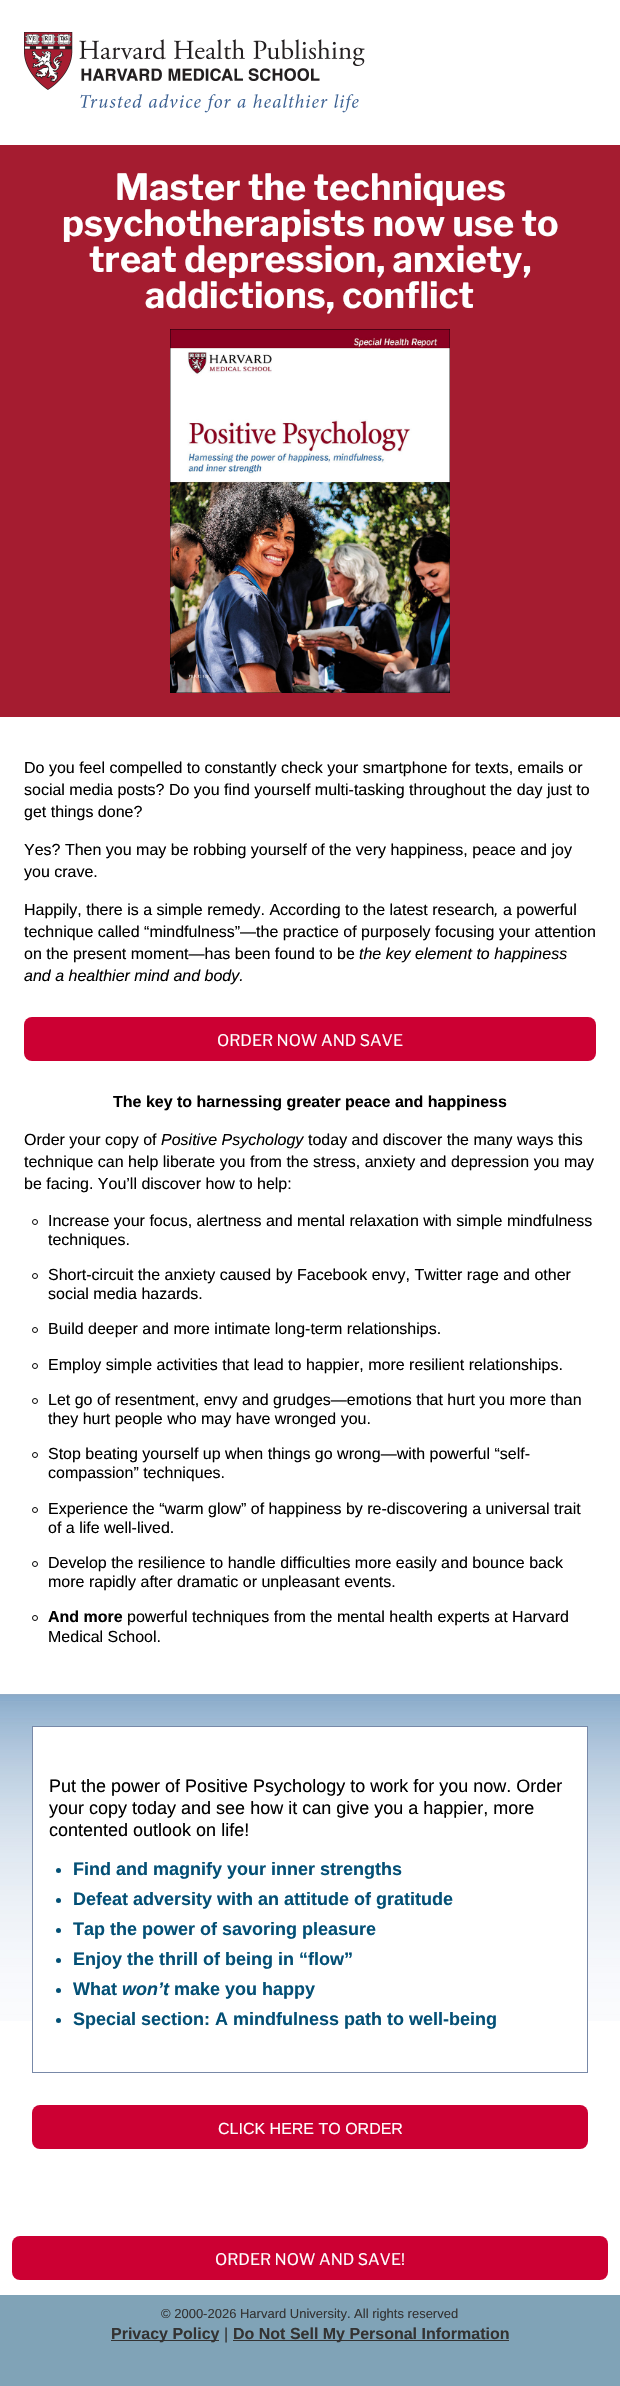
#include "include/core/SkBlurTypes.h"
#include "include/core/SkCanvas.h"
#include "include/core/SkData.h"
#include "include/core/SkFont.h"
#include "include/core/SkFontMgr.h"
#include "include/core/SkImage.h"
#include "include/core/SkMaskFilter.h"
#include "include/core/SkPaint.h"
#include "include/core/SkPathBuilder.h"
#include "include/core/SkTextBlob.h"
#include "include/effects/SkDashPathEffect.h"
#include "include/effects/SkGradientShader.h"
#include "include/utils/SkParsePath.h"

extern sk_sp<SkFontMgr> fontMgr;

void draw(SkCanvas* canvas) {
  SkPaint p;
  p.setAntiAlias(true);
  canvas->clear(SkColorSetRGB(128, 163, 183));
  p.setColor(SK_ColorWHITE);
  canvas->drawRect(SkRect::MakeLTRB(0, 0, 620, 2295), p);
  canvas->drawImageRect(SkImages::DeferredFromEncodedData(SkData::MakeFromFileName("images/1.png")), SkRect::MakeLTRB(24, 32, 365, 113), SkSamplingOptions());
  p.setColor(SkColorSetRGB(165, 28, 48));
  canvas->drawRect(SkRect::MakeLTRB(0, 145, 620, 717), p);
  canvas->drawImageRect(SkImages::DeferredFromEncodedData(SkData::MakeFromFileName("images/2.png")), SkRect::MakeLTRB(170, 329, 450, 693), SkSamplingOptions());
  p.setColor(SkColorSetRGB(204, 0, 51));
  canvas->drawRoundRect(SkRect::MakeLTRB(24, 1017, 596, 1061), 8, 8, p);
  p.setStyle(SkPaint::kStroke_Style);
  p.setStrokeWidth(1);
  p.setColor(SK_ColorBLACK);
  canvas->drawCircle(35, 1222, 2.5f, p);
  canvas->drawCircle(35, 1276, 2.5f, p);
  canvas->drawCircle(35, 1330, 2.5f, p);
  canvas->drawCircle(35, 1366, 2.5f, p);
  canvas->drawCircle(35, 1401, 2.5f, p);
  canvas->drawCircle(35, 1455, 2.5f, p);
  canvas->drawCircle(35, 1510, 2.5f, p);
  canvas->drawCircle(35, 1564, 2.5f, p);
  canvas->drawCircle(35, 1618, 2.5f, p);
  canvas->drawImageRect(SkImages::DeferredFromEncodedData(SkData::MakeFromFileName("images/3.png")), SkRect::MakeLTRB(0, 1694, 620, 2021), SkSamplingOptions());
  p.setStyle(SkPaint::kFill_Style);
  p.setColor(SK_ColorWHITE);
  canvas->drawRect(SkRect::MakeLTRB(33, 1727, 587, 2021), p);
  p.setStyle(SkPaint::kStroke_Style);
  p.setColor(SkColorSetRGB(120, 137, 168));
  canvas->drawRect(SkRect::MakeLTRB(32.5f, 1726.5f, 587.5f, 2072.5f), p);
  p.setStyle(SkPaint::kFill_Style);
  p.setColor(SkColorSetRGB(3, 80, 118));
  canvas->drawCircle(58.5f, 1870.5f, 2.5f, p);
  canvas->drawCircle(58.5f, 1900.5f, 2.5f, p);
  canvas->drawCircle(58.5f, 1930.5f, 2.5f, p);
  canvas->drawCircle(58.5f, 1960.5f, 2.5f, p);
  canvas->drawCircle(58.5f, 1990.5f, 2.5f, p);
  canvas->drawCircle(58.5f, 2020.5f, 2.5f, p);
  p.setColor(SkColorSetRGB(204, 0, 51));
  canvas->drawRoundRect(SkRect::MakeLTRB(32, 2105, 588, 2149), 8, 8, p);
  canvas->drawRoundRect(SkRect::MakeLTRB(12, 2236, 608, 2280), 8, 8, p);
  p.setColor(SkColorSetRGB(51, 51, 51));
  canvas->drawRect(SkRect::MakeLTRB(111, 2340, 219, 2341), p);
  canvas->drawRect(SkRect::MakeLTRB(233, 2340, 509, 2341), p);
  SkFont font1(fontMgr->matchFamilyStyle("Libre Franklin", SkFontStyle(100, SkFontStyle::kNormal_Width, SkFontStyle::kUpright_Slant)), 36);
  font1.setSubpixel(true);
  p.setColor(SK_ColorWHITE);
  canvas->drawString("Master the techniques", 115, 200, font1, p);
  canvas->drawString("psychotherapists now use to", 62, 236, font1, p);
  canvas->drawString("treat depression, anxiety,", 89, 272, font1, p);
  canvas->drawString("addictions, conflict", 145, 308, font1, p);
  SkFont font2(fontMgr->matchFamilyStyle("Liberation Sans", SkFontStyle::Normal()), 16);
  font2.setSubpixel(true);
  p.setColor(SK_ColorBLACK);
  canvas->drawString("Do you feel compelled to constantly check your smartphone for texts, emails or", 24, 773, font2, p);
  canvas->drawString("social media posts? Do you find yourself multi-tasking throughout the day just to", 24, 795, font2, p);
  canvas->drawString("get things done?", 24, 817, font2, p);
  canvas->drawString("Yes? Then you may be robbing yourself of the very happiness, peace and joy", 24, 855, font2, p);
  canvas->drawString("you crave.", 24, 877, font2, p);
  canvas->drawString("Happily, there is a simple remedy. According to the latest research", 24, 915, font2, p);
  SkFont font3(fontMgr->matchFamilyStyle("Liberation Sans", SkFontStyle::Italic()), 16);
  font3.setSubpixel(true);
  canvas->drawString(",", 494, 915, font3, p);
  canvas->drawString("a powerful", 503, 915, font2, p);
  canvas->drawString("technique called “mindfulness”—the practice of purposely focusing your attention", 24, 937, font2, p);
  canvas->drawString("on the present moment—has been found to be", 24, 959, font2, p);
  canvas->drawString("the key element to happiness", 359, 959, font3, p);
  canvas->drawString("and a healthier mind and body.", 24, 981, font3, p);
  SkFont font4(fontMgr->matchFamilyStyle("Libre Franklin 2", SkFontStyle(100, SkFontStyle::kNormal_Width, SkFontStyle::kUpright_Slant)), 16);
  font4.setSubpixel(true);
  p.setColor(SK_ColorWHITE);
  canvas->drawString("ORDER NOW AND SAVE", 217, 1046, font4, p);
  SkFont font5(fontMgr->matchFamilyStyle("Liberation Sans", SkFontStyle::Bold()), 16);
  font5.setSubpixel(true);
  p.setColor(SK_ColorBLACK);
  canvas->drawString("The key to harnessing greater peace and happiness", 113, 1107, font5, p);
  canvas->drawString("Order your copy of", 24, 1145, font2, p);
  canvas->drawString("Positive Psychology", 161, 1145, font3, p);
  canvas->drawString("today and discover the many ways this", 308, 1145, font2, p);
  canvas->drawString("technique can help liberate you from the stress, anxiety and depression you may", 24, 1167, font2, p);
  canvas->drawString("be facing. You’ll discover how to help:", 24, 1189, font2, p);
  canvas->drawString("Increase your focus, alertness and mental relaxation with simple mindfulness", 48, 1226, font2, p);
  canvas->drawString("techniques.", 48, 1245, font2, p);
  canvas->drawString("Short-circuit the anxiety caused by Facebook envy, Twitter rage and other", 48, 1280, font2, p);
  canvas->drawString("social media hazards.", 48, 1299, font2, p);
  canvas->drawString("Build deeper and more intimate long-term relationships.", 48, 1334, font2, p);
  canvas->drawString("Employ simple activities that lead to happier, more resilient relationships.", 48, 1370, font2, p);
  canvas->drawString("Let go of resentment, envy and grudges—emotions that hurt you more than", 48, 1405, font2, p);
  canvas->drawString("they hurt people who may have wronged you.", 48, 1424, font2, p);
  canvas->drawString("Stop beating yourself up when things go wrong—with powerful “self-", 48, 1459, font2, p);
  canvas->drawString("compassion” techniques.", 48, 1478, font2, p);
  canvas->drawString("Experience the “warm glow” of happiness by re-discovering a universal trait", 48, 1514, font2, p);
  canvas->drawString("of a life well-lived.", 48, 1533, font2, p);
  canvas->drawString("Develop the resilience to handle difficulties more easily and bounce back", 48, 1568, font2, p);
  canvas->drawString("more rapidly after dramatic or unpleasant events.", 48, 1587, font2, p);
  canvas->drawString("And more", 48, 1622, font5, p);
  canvas->drawString("powerful techniques from the mental health experts at Harvard", 127, 1622, font2, p);
  canvas->drawString("Medical School.", 48, 1642, font2, p);
  SkFont font6(fontMgr->matchFamilyStyle("Liberation Sans", SkFontStyle::Normal()), 18);
  font6.setSubpixel(true);
  canvas->drawString("Put the power of Positive Psychology to work for you now. Order", 49, 1792, font6, p);
  canvas->drawString("your copy today and see how it can give you a happier, more", 49, 1814, font6, p);
  canvas->drawString("contented outlook on life!", 49, 1836, font6, p);
  SkFont font7(fontMgr->matchFamilyStyle("Liberation Sans", SkFontStyle::Bold()), 18);
  font7.setSubpixel(true);
  p.setColor(SkColorSetRGB(3, 80, 118));
  canvas->drawString("Find and magnify your inner strengths", 73, 1875, font7, p);
  canvas->drawString("Defeat adversity with an attitude of gratitude", 73, 1905, font7, p);
  canvas->drawString("Tap the power of savoring pleasure", 73, 1935, font7, p);
  canvas->drawString("Enjoy the thrill of being in “flow”", 73, 1965, font7, p);
  canvas->drawString("What", 73, 1995, font7, p);
  SkFont font8(fontMgr->matchFamilyStyle("Liberation Sans", SkFontStyle::BoldItalic()), 18);
  font8.setSubpixel(true);
  canvas->drawString("won’t", 122, 1995, font8, p);
  canvas->drawString("make you happy", 174, 1995, font7, p);
  canvas->drawString("Special section: A mindfulness path to well-being", 73, 2025, font7, p);
  p.setColor(SK_ColorWHITE);
  canvas->drawString("CLICK HERE TO ORDER", 218, 2134, font2, p);
  canvas->drawString("ORDER NOW AND SAVE!", 215, 2265, font4, p);
  SkFont font9(fontMgr->matchFamilyStyle("Liberation Sans", SkFontStyle::Normal()), 13);
  font9.setSubpixel(true);
  p.setColor(SkColorSetRGB(51, 51, 51));
  canvas->drawString("© 2000-2026 Harvard University. All rights reserved", 161, 2318, font9, p);
  canvas->drawString("Privacy Policy", 111, 2339, font5, p);
  canvas->drawString("|", 224, 2339, font2, p);
  canvas->drawString("Do Not Sell My Personal Information", 233, 2339, font5, p);
}
